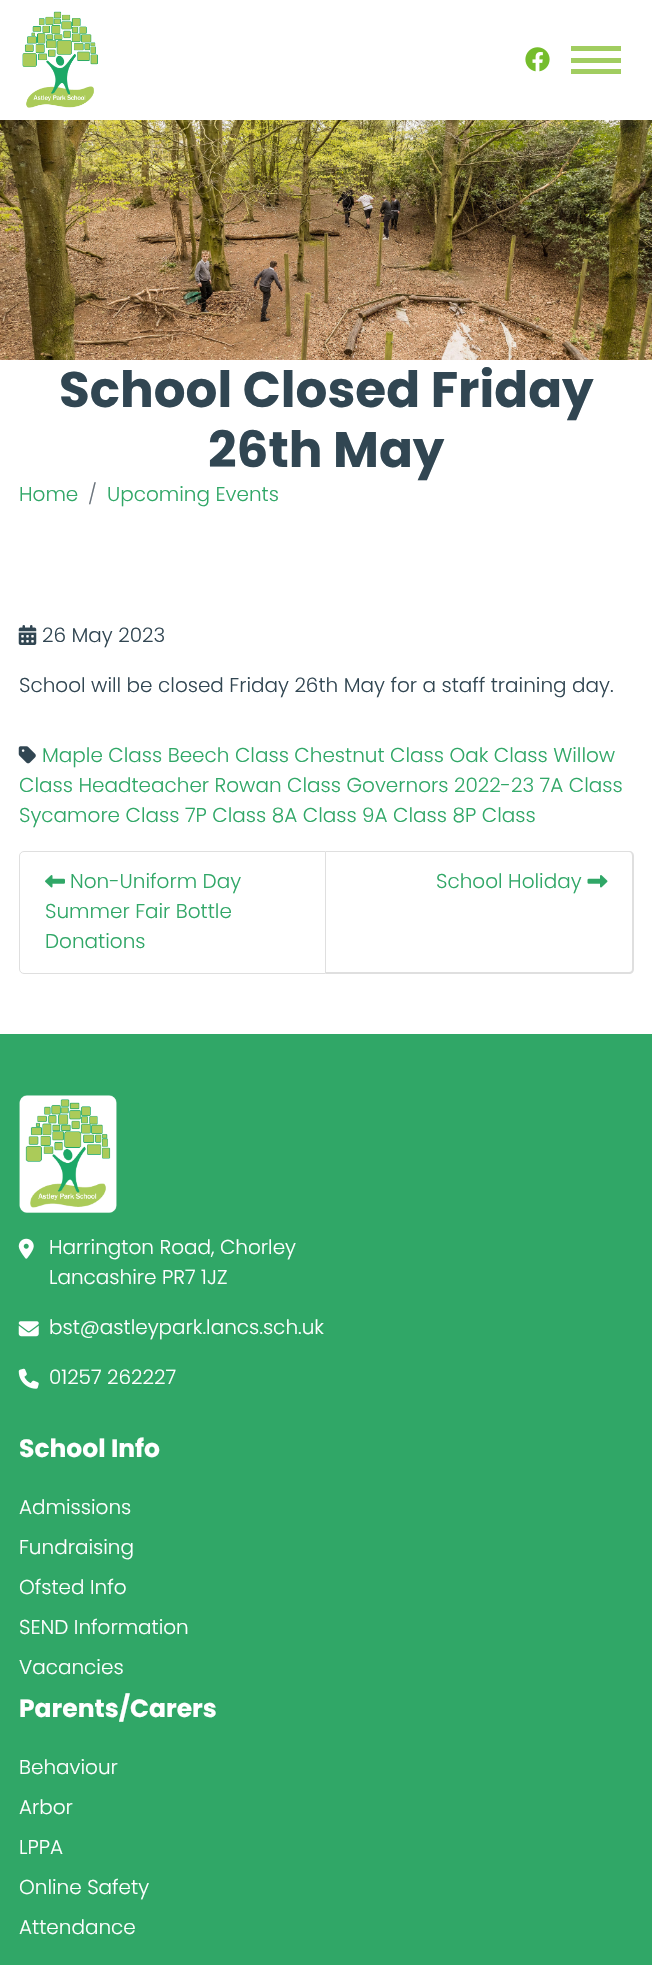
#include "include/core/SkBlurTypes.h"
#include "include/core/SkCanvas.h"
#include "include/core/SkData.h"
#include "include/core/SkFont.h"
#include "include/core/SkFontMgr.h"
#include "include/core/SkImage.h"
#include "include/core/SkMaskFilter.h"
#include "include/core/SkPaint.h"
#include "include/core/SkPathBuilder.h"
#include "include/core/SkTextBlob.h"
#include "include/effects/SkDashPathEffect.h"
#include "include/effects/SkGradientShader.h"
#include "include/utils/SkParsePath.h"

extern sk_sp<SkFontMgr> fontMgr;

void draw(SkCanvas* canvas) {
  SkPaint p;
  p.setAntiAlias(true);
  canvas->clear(SK_ColorWHITE);
  canvas->drawImageRect(SkImages::DeferredFromEncodedData(SkData::MakeFromFileName("images/1.png")), SkRect::MakeLTRB(22, 11, 98, 108), SkSamplingOptions());
  canvas->drawImageRect(SkImages::DeferredFromEncodedData(SkData::MakeFromFileName("images/2.png")), SkRect::MakeLTRB(525, 47, 550, 72), SkSamplingOptions());
  p.setColor(SkColorSetRGB(161, 205, 96));
  canvas->drawRect(SkRect::MakeLTRB(571, 46, 621, 51), p);
  canvas->drawRect(SkRect::MakeLTRB(571, 58, 621, 63), p);
  canvas->drawRect(SkRect::MakeLTRB(571, 69, 621, 74), p);
  canvas->drawImageRect(SkImages::DeferredFromEncodedData(SkData::MakeFromFileName("images/3.png")), SkRect::MakeLTRB(0, 120, 652, 360), SkSamplingOptions());
  canvas->drawImageRect(SkImages::DeferredFromEncodedData(SkData::MakeFromFileName("images/4.png")), SkRect::MakeLTRB(18, 625, 37, 645), SkSamplingOptions());
  canvas->drawImageRect(SkImages::DeferredFromEncodedData(SkData::MakeFromFileName("images/5.png")), SkRect::MakeLTRB(18, 746, 36, 764), SkSamplingOptions());
  p.setStyle(SkPaint::kStroke_Style);
  p.setStrokeWidth(1);
  p.setColor(SkColorSetRGB(223, 223, 223));
  canvas->drawPath(SkPathBuilder().moveTo(24, 851.5f).lineTo(325.5f, 851.5f).lineTo(325.5f, 973.5f).lineTo(24, 973.5f).cubicTo(21.5f, 973.5f, 19.5f, 971.5f, 19.5f, 969).lineTo(19.5f, 856).cubicTo(19.5f, 853.5f, 21.5f, 851.5f, 24, 851.5f).close().detach(), p);
  canvas->drawImageRect(SkImages::DeferredFromEncodedData(SkData::MakeFromFileName("images/6.png")), SkRect::MakeLTRB(45, 875, 65, 888), SkSamplingOptions());
  p.setStyle(SkPaint::kFill_Style);
  canvas->drawPath(SkPathBuilder(SkPathFillType::kEvenOdd).moveTo(326, 851).lineTo(629, 851).cubicTo(632, 851, 634, 853, 634, 856).lineTo(634, 969).cubicTo(634, 972, 632, 974, 629, 974).lineTo(326, 974).close().moveTo(326, 852).lineTo(629, 852).cubicTo(631, 852, 632, 854, 632, 856).lineTo(632, 969).cubicTo(632, 971, 631, 972, 629, 972).lineTo(326, 972).close().detach(), p);
  canvas->drawImageRect(SkImages::DeferredFromEncodedData(SkData::MakeFromFileName("images/7.png")), SkRect::MakeLTRB(587, 875, 608, 888), SkSamplingOptions());
  p.setColor(SkColorSetRGB(48, 167, 103));
  canvas->drawRect(SkRect::MakeLTRB(0, 1034, 652, 1965), p);
  canvas->drawImageRect(SkImages::DeferredFromEncodedData(SkData::MakeFromFileName("images/8.png")), SkRect::MakeLTRB(19, 1095, 117, 1213), SkSamplingOptions());
  canvas->drawImageRect(SkImages::DeferredFromEncodedData(SkData::MakeFromFileName("images/9.png")), SkRect::MakeLTRB(18, 1238, 34, 1259), SkSamplingOptions());
  canvas->drawImageRect(SkImages::DeferredFromEncodedData(SkData::MakeFromFileName("images/10.png")), SkRect::MakeLTRB(18, 1321, 39, 1337), SkSamplingOptions());
  canvas->drawImageRect(SkImages::DeferredFromEncodedData(SkData::MakeFromFileName("images/11.png")), SkRect::MakeLTRB(18, 1368, 39, 1389), SkSamplingOptions());
  SkFont font1(fontMgr->matchFamilyStyle("Poppins", SkFontStyle::Bold()), 50);
  font1.setSubpixel(true);
  p.setColor(SkColorSetRGB(49, 70, 82));
  canvas->drawString("School Closed Friday", 59, 407, font1, p);
  canvas->drawString("26th May", 208, 467, font1, p);
  SkFont font2(fontMgr->matchFamilyStyle("Poppins", SkFontStyle(300, SkFontStyle::kNormal_Width, SkFontStyle::kUpright_Slant)), 20);
  font2.setSubpixel(true);
  p.setColor(SkColorSetRGB(48, 167, 103));
  canvas->drawString("Home", 19, 501, font2, p);
  p.setColor(SkColorSetRGB(108, 117, 125));
  canvas->drawString("/", 88, 501, font2, p);
  p.setColor(SkColorSetRGB(48, 167, 103));
  canvas->drawString("Upcoming Events", 107, 501, font2, p);
  p.setColor(SkColorSetRGB(49, 70, 82));
  canvas->drawString("26 May 2023", 42, 642, font2, p);
  canvas->drawString("School will be closed Friday 26th May for a staff training day.", 19, 692, font2, p);
  p.setColor(SkColorSetRGB(48, 167, 103));
  canvas->drawString("Maple Class Beech Class Chestnut Class Oak Class Willow", 42, 762, font2, p);
  canvas->drawString("Class Headteacher Rowan Class Governors 2022-23 7A Class", 19, 792, font2, p);
  canvas->drawString("Sycamore Class 7P Class 8A Class 9A Class 8P Class", 19, 822, font2, p);
  canvas->drawString("Non-Uniform Day", 70, 888, font2, p);
  canvas->drawString("Summer Fair Bottle", 45, 918, font2, p);
  canvas->drawString("Donations", 45, 948, font2, p);
  canvas->drawString("School Holiday", 436, 888, font2, p);
  p.setColor(SK_ColorWHITE);
  canvas->drawString("Harrington Road, Chorley", 49, 1254, font2, p);
  canvas->drawString("Lancashire PR7 1JZ", 49, 1284, font2, p);
  canvas->drawString("bst@astleypark.lancs.sch.uk", 49, 1334, font2, p);
  canvas->drawString("01257 262227", 49, 1384, font2, p);
  SkFont font3(fontMgr->matchFamilyStyle("Poppins", SkFontStyle::Bold()), 25);
  font3.setSubpixel(true);
  canvas->drawString("School Info", 19, 1457, font3, p);
  canvas->drawString("Admissions", 19, 1514, font2, p);
  canvas->drawString("Fundraising", 19, 1554, font2, p);
  canvas->drawString("Ofsted Info", 19, 1594, font2, p);
  canvas->drawString("SEND Information", 19, 1634, font2, p);
  canvas->drawString("Vacancies", 19, 1674, font2, p);
  canvas->drawString("Parents/Carers", 19, 1717, font3, p);
  canvas->drawString("Behaviour", 19, 1774, font2, p);
  canvas->drawString("Arbor", 19, 1814, font2, p);
  canvas->drawString("LPPA", 19, 1854, font2, p);
  canvas->drawString("Online Safety", 19, 1894, font2, p);
  canvas->drawString("Attendance", 19, 1934, font2, p);
}
